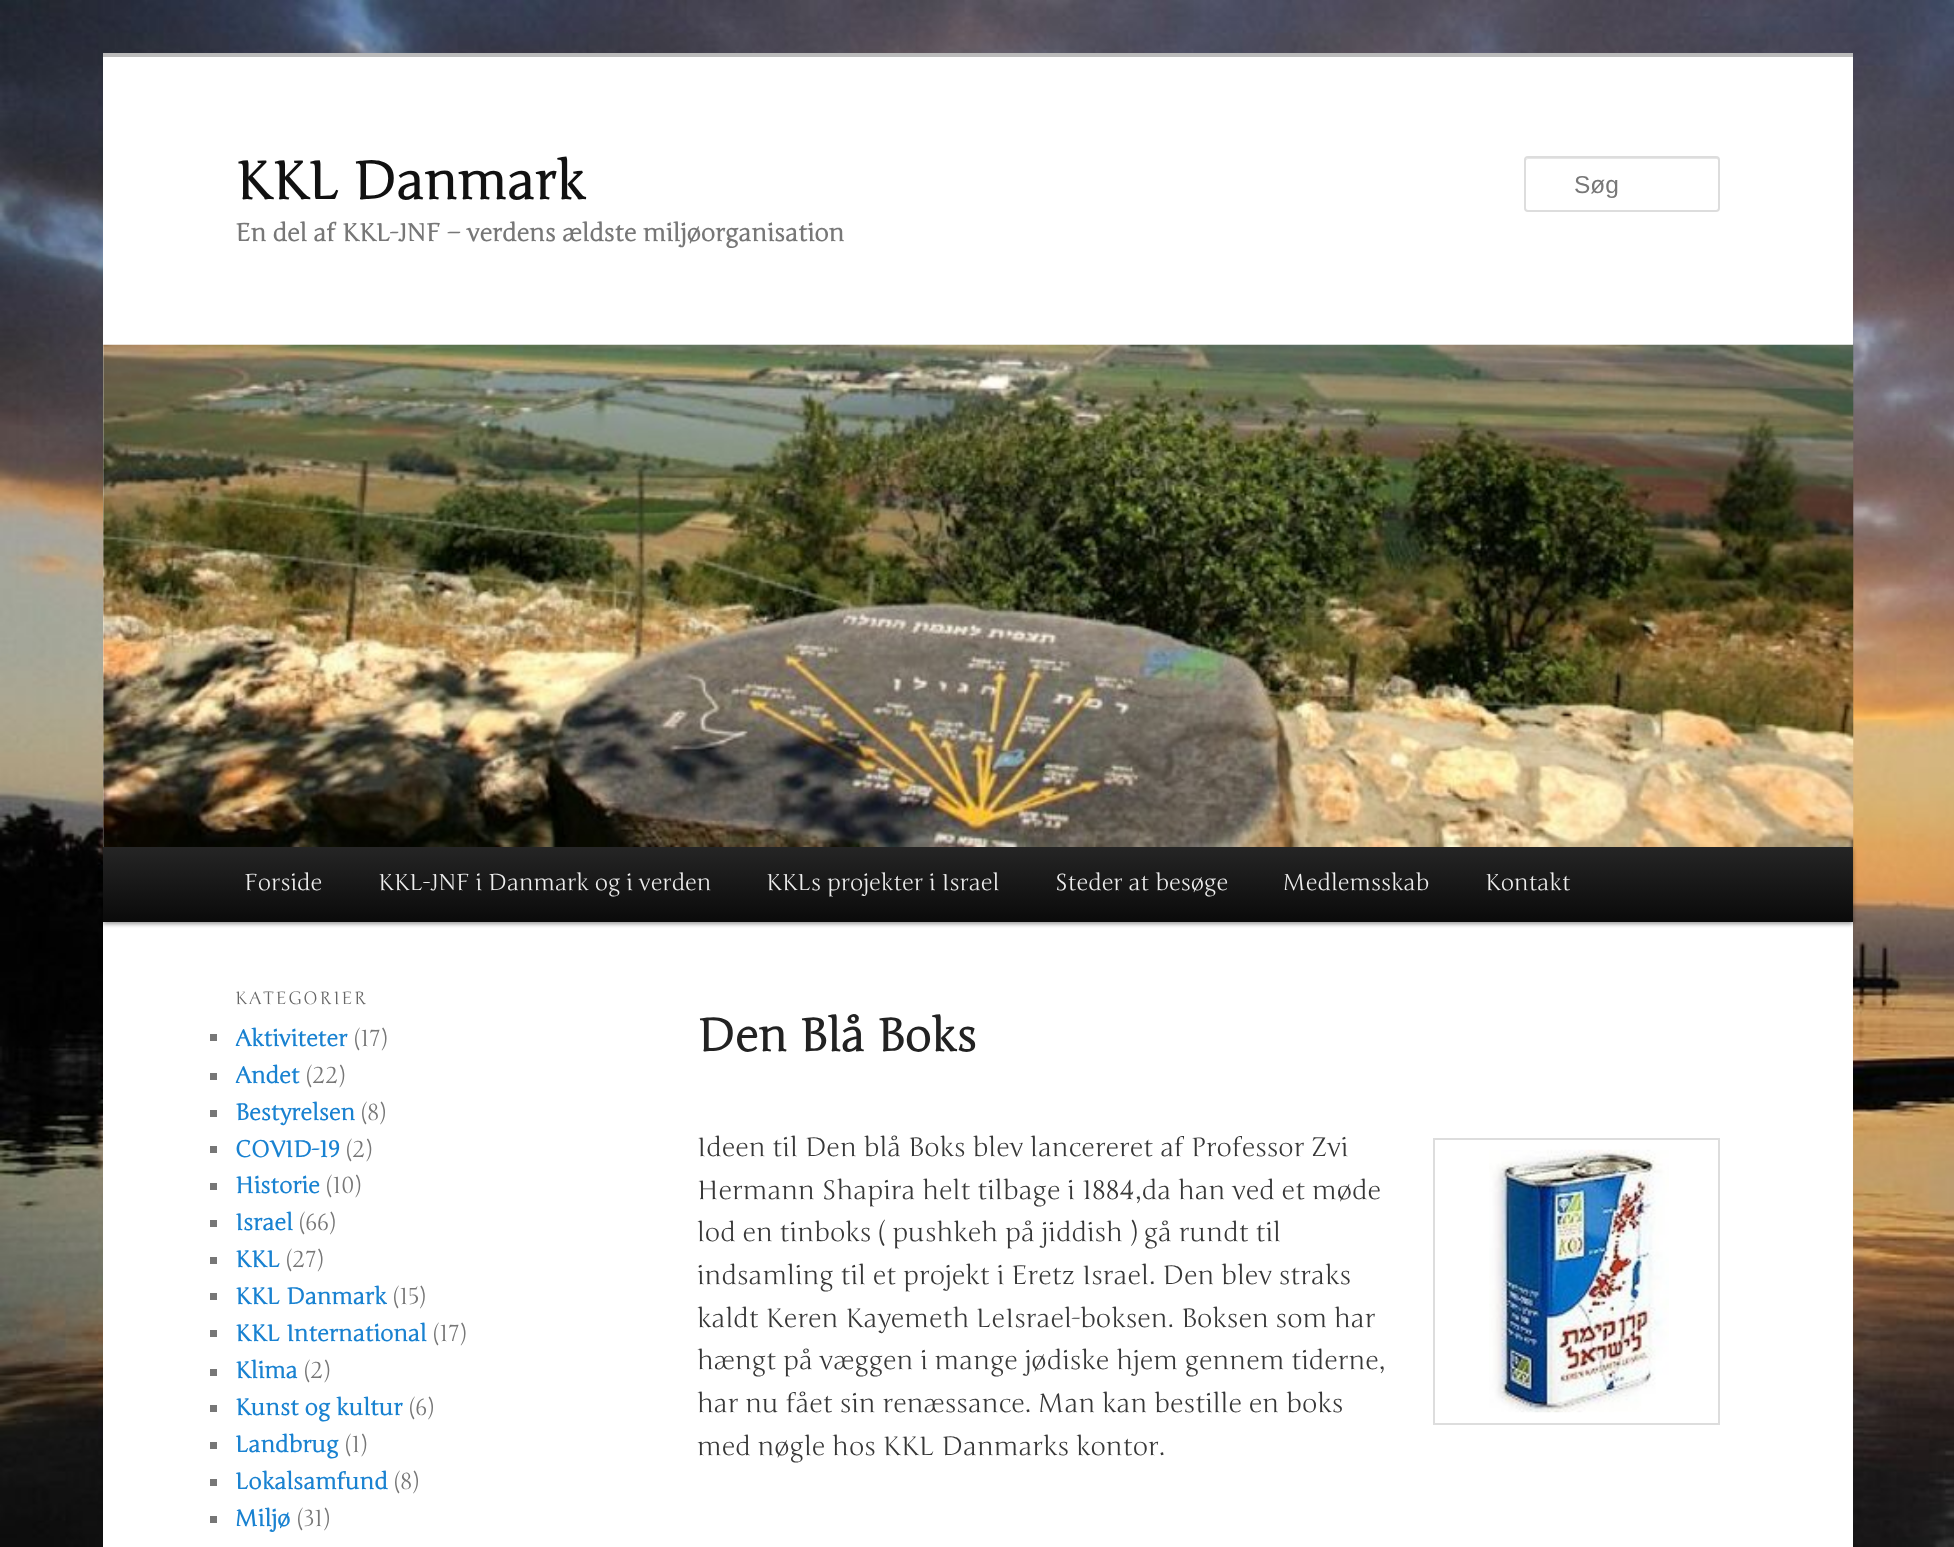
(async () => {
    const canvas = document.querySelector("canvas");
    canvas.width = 1954;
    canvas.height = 1547;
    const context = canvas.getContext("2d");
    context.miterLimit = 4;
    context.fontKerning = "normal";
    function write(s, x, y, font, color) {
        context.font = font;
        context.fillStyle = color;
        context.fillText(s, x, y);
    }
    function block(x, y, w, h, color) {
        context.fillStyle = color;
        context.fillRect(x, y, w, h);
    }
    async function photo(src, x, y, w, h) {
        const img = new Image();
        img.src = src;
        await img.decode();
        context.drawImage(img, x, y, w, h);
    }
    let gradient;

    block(0, 0, 1954, 1547, "rgb(255, 255, 255)");
    await photo("media/1.png", 0, 0, 1954, 1547);
    block(103, 57, 1750, 1490, "rgb(255, 255, 255)");
    block(103, 53, 1750, 4, "rgb(187, 187, 187)");
    write("KKL Danmark", 235, 199, "bold 52.5px Junge", "rgb(17, 17, 17)");
    write("En del af KKL-JNF – verdens ældste miljøorganisation", 235, 241, "bold 24.5px Junge", "rgb(119, 119, 119)");
    context.fillStyle = "rgb(230, 230, 230)";
    context.beginPath();
    context.moveTo(1528, 159);
    context.lineTo(1717, 159);
    context.bezierCurveTo(1718, 159, 1718, 160, 1718, 161);
    context.lineTo(1718, 210);
    context.bezierCurveTo(1719, 209, 1719, 209, 1719, 208);
    context.lineTo(1719, 160);
    context.bezierCurveTo(1719, 159, 1718, 158, 1717, 158);
    context.lineTo(1528, 158);
    context.bezierCurveTo(1527, 158, 1526, 159, 1526, 160);
    context.lineTo(1526, 161);
    context.bezierCurveTo(1526, 160, 1527, 159, 1528, 159);
    context.closePath();
    context.fill();
    context.beginPath();
    context.roundRect(1525, 157, 194, 54, 3);
    context.strokeStyle = "rgb(221, 221, 221)";
    context.lineWidth = 2;
    context.stroke();
    write("Søg", 1574, 193, "24.5px Liberation Sans", "rgb(119, 119, 119)");
    context.fillStyle = "rgba(0, 0, 0, 0.4)";
    context.filter = "blur(2px)";
    context.beginPath();
    context.rect(103, 849, 1750, 75);
    context.fill();
    context.filter = "none";
    await photo("media/2.png", 103, 344, 1751, 503);
    gradient = context.createLinearGradient(978, 847, 978, 922);
    gradient.addColorStop(0, "rgb(37, 37, 37)");
    gradient.addColorStop(1, "rgb(10, 10, 10)");
    context.fillStyle = gradient;
    context.fillRect(103, 847, 1750, 75);
    write("Forside", 244, 890, "22.75px Junge", "rgb(238, 238, 238)");
    write("KKL-JNF i Danmark og i verden", 378, 890, "22.75px Junge", "rgb(238, 238, 238)");
    write("KKLs projekter i Israel", 766, 890, "22.75px Junge", "rgb(238, 238, 238)");
    write("Steder at besøge", 1055, 890, "22.75px Junge", "rgb(238, 238, 238)");
    write("Medlemsskab", 1283, 890, "22.75px Junge", "rgb(238, 238, 238)");
    write("Kontakt", 1485, 890, "22.75px Junge", "rgb(238, 238, 238)");
    context.letterSpacing = "1.75px";
    write("KATEGORIER", 235, 1004, "17.5px Junge", "rgb(102, 102, 102)");
    block(210, 1034, 7, 7, "rgb(119, 119, 119)");
    context.letterSpacing = "0px";
    write("Aktiviteter", 235, 1046, "bold 22.75px Junge", "rgb(25, 130, 209)");
    write("(17)", 354, 1046, "22.75px Junge", "rgb(119, 119, 119)");
    block(210, 1073, 7, 7, "rgb(119, 119, 119)");
    write("Andet", 235, 1083, "bold 22.75px Junge", "rgb(25, 130, 209)");
    write("(22)", 306, 1083, "22.75px Junge", "rgb(119, 119, 119)");
    block(210, 1110, 7, 7, "rgb(119, 119, 119)");
    write("Bestyrelsen", 235, 1120, "bold 22.75px Junge", "rgb(25, 130, 209)");
    write("(8)", 361, 1120, "22.75px Junge", "rgb(119, 119, 119)");
    block(210, 1146, 7, 7, "rgb(119, 119, 119)");
    write("COVID-19", 235, 1157, "bold 22.75px Junge", "rgb(25, 130, 209)");
    write("(2)", 346, 1157, "22.75px Junge", "rgb(119, 119, 119)");
    block(210, 1183, 7, 7, "rgb(119, 119, 119)");
    write("Historie", 235, 1193, "bold 22.75px Junge", "rgb(25, 130, 209)");
    write("(10)", 326, 1193, "22.75px Junge", "rgb(119, 119, 119)");
    block(210, 1220, 7, 7, "rgb(119, 119, 119)");
    write("Israel", 235, 1230, "bold 22.75px Junge", "rgb(25, 130, 209)");
    write("(66)", 299, 1230, "22.75px Junge", "rgb(119, 119, 119)");
    block(210, 1257, 7, 7, "rgb(119, 119, 119)");
    write("KKL", 235, 1267, "bold 22.75px Junge", "rgb(25, 130, 209)");
    write("(27)", 286, 1267, "22.75px Junge", "rgb(119, 119, 119)");
    block(210, 1293, 7, 7, "rgb(119, 119, 119)");
    write("KKL Danmark", 235, 1304, "bold 22.75px Junge", "rgb(25, 130, 209)");
    write("(15)", 393, 1304, "22.75px Junge", "rgb(119, 119, 119)");
    block(210, 1330, 7, 7, "rgb(119, 119, 119)");
    write("KKL International", 235, 1341, "bold 22.75px Junge", "rgb(25, 130, 209)");
    write("(17)", 433, 1341, "22.75px Junge", "rgb(119, 119, 119)");
    block(210, 1369, 7, 7, "rgb(119, 119, 119)");
    write("Klima", 235, 1378, "bold 22.75px Junge", "rgb(25, 130, 209)");
    write("(2)", 304, 1378, "22.75px Junge", "rgb(119, 119, 119)");
    block(210, 1405, 7, 7, "rgb(119, 119, 119)");
    write("Kunst og kultur", 235, 1415, "bold 22.75px Junge", "rgb(25, 130, 209)");
    write("(6)", 409, 1415, "22.75px Junge", "rgb(119, 119, 119)");
    block(210, 1442, 7, 7, "rgb(119, 119, 119)");
    write("Landbrug", 235, 1452, "bold 22.75px Junge", "rgb(25, 130, 209)");
    write("(1)", 345, 1452, "22.75px Junge", "rgb(119, 119, 119)");
    block(210, 1479, 7, 7, "rgb(119, 119, 119)");
    write("Lokalsamfund", 235, 1489, "bold 22.75px Junge", "rgb(25, 130, 209)");
    write("(8)", 394, 1489, "22.75px Junge", "rgb(119, 119, 119)");
    block(210, 1516, 7, 7, "rgb(119, 119, 119)");
    write("Miljø", 235, 1526, "bold 22.75px Junge", "rgb(25, 130, 209)");
    write("(31)", 297, 1526, "22.75px Junge", "rgb(119, 119, 119)");
    write("Den Blå Boks", 697, 1051, "bold 45.5px Junge", "rgb(34, 34, 34)");
    write("Ideen til Den blå Boks blev lancereret af Professor Zvi", 697, 1156, "26.25px Junge", "rgb(55, 55, 55)");
    context.strokeRect(1434, 1139, 285, 285);
    await photo("media/3.png", 1489, 1149, 180, 264);
    write("Hermann Shapira helt tilbage i 1884,da han ved et møde", 697, 1199, "26.25px Junge", "rgb(55, 55, 55)");
    write("lod en tinboks ( pushkeh på jiddish ) gå rundt til", 697, 1241, "26.25px Junge", "rgb(55, 55, 55)");
    write("indsamling til et projekt i Eretz Israel. Den blev straks", 697, 1284, "26.25px Junge", "rgb(55, 55, 55)");
    write("kaldt Keren Kayemeth LeIsrael-boksen. Boksen som har", 697, 1327, "26.25px Junge", "rgb(55, 55, 55)");
    write("hængt på væggen i mange jødiske hjem gennem tiderne,", 697, 1369, "26.25px Junge", "rgb(55, 55, 55)");
    write("har nu fået sin renæssance. Man kan bestille en boks", 697, 1412, "26.25px Junge", "rgb(55, 55, 55)");
    write("med nøgle hos KKL Danmarks kontor.", 697, 1455, "26.25px Junge", "rgb(55, 55, 55)");
})();
